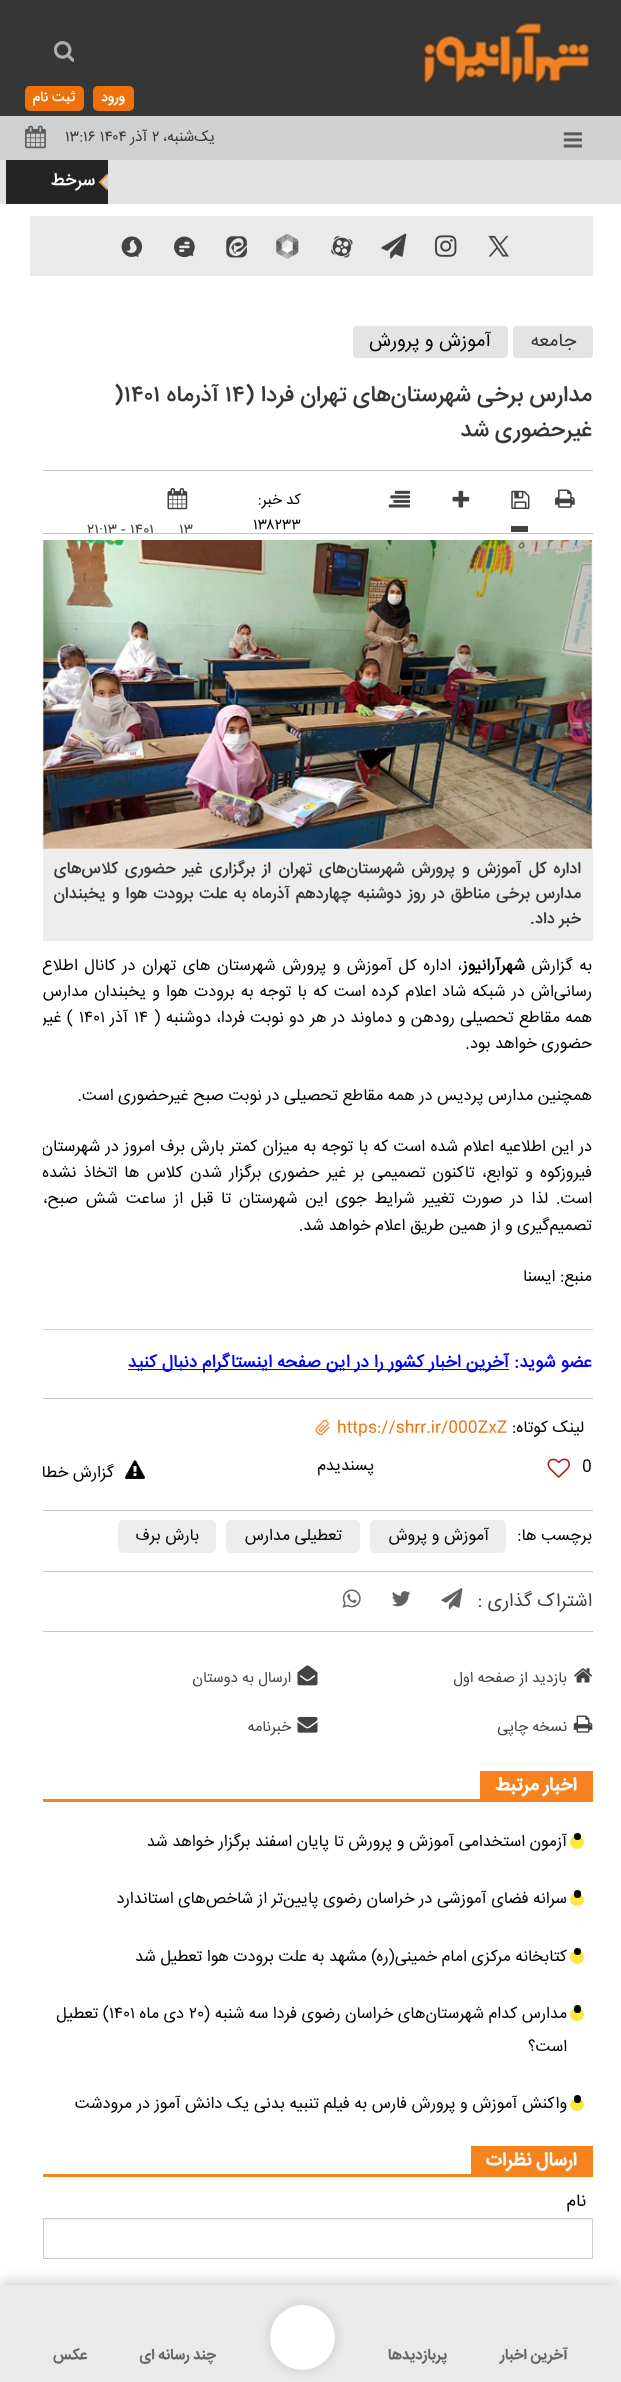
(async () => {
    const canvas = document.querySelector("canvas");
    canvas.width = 621;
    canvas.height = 2382;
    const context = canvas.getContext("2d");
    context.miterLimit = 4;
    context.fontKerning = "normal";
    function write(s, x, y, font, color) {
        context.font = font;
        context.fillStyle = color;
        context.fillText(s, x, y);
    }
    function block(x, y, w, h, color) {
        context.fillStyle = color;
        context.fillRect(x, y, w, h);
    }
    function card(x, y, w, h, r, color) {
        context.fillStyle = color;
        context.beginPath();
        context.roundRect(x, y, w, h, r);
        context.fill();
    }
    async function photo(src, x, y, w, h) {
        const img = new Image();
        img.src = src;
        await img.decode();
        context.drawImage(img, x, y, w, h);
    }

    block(0, 0, 621, 2382, "rgb(255, 255, 255)");
    block(0, 0, 621, 116, "rgb(54, 54, 54)");
    await photo("media/1.png", 422, 21, 169, 63);
    await photo("media/2.png", 54, 41, 20, 21);
    card(93, 86, 41, 25, 5, "rgb(237, 113, 8)");
    context.direction = "rtl";
    write("ورود", 125, 101, "500 14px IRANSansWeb", "rgb(255, 255, 255)");
    card(25, 86, 59, 25, 5, "rgb(237, 113, 8)");
    write("ثبت نام", 75, 101, "500 14px IRANSansWeb", "rgb(255, 255, 255)");
    block(0, 116, 621, 44, "rgb(208, 208, 208)");
    await photo("media/3.png", 563, 132, 19, 16);
    write("یک‌شنبه،", 215, 141, "15px IRANSansWeb", "rgb(54, 54, 54)");
    context.direction = "ltr";
    write("۲", 152, 141, "15px IRANSansWeb", "rgb(54, 54, 54)");
    context.direction = "rtl";
    write("آذر", 147, 141, "15px IRANSansWeb", "rgb(54, 54, 54)");
    context.direction = "ltr";
    write("۱۳:۱۶ ۱۴۰۴", 65, 141, "15px IRANSansWeb", "rgb(54, 54, 54)");
    await photo("media/4.png", 25, 125, 21, 24);
    block(0, 160, 621, 44, "rgb(226, 226, 226)");
    block(6, 160, 102, 44, "rgb(36, 36, 36)");
    context.save();
    context.beginPath();
    context.rect(6, 160, 102, 44);
    context.clip();
    context.fillStyle = "rgb(208, 208, 208)";
    context.beginPath();
    context.moveTo(107, 174);
    context.lineTo(115, 182);
    context.lineTo(107, 190);
    context.lineTo(99, 182);
    context.closePath();
    context.fill();
    context.restore();
    context.fillStyle = "rgb(247, 131, 32)";
    context.beginPath();
    context.moveTo(100, 181);
    context.lineTo(108, 189);
    context.lineTo(107, 190);
    context.lineTo(99, 182);
    context.closePath();
    context.fill();
    context.beginPath();
    context.moveTo(107, 174);
    context.lineTo(108, 175);
    context.lineTo(100, 183);
    context.lineTo(99, 182);
    context.closePath();
    context.fill();
    context.direction = "rtl";
    write("سرخط", 95, 185, "500 17.5px IRANSansWeb", "rgb(255, 255, 255)");
    block(30, 216, 563, 60, "rgb(234, 234, 234)");
    await photo("media/5.png", 488, 235, 21, 22);
    await photo("media/6.png", 435, 235, 22, 22);
    await photo("media/7.png", 381, 233, 26, 26);
    await photo("media/8.png", 331, 236, 22, 22);
    await photo("media/9.png", 276, 234, 23, 25);
    await photo("media/10.png", 226, 236, 21, 22);
    await photo("media/11.png", 174, 236, 21, 22);
    await photo("media/12.png", 121, 236, 22, 22);
    card(513, 326, 80, 32, 4, "rgb(228, 228, 228)");
    write("جامعه", 576, 346, "18.75px IRANSansWeb", "rgb(54, 54, 54)");
    card(353, 326, 155, 32, 4, "rgb(228, 228, 228)");
    write("آموزش و پرورش", 491, 346, "18.75px IRANSansWeb", "rgb(0, 0, 0)");
    write("مدارس برخی شهرستان‌های تهران فردا (", 592, 401, "500 22.5px IRANSansWeb", "rgb(54, 54, 54)");
    context.direction = "ltr";
    write("۱۴", 225, 401, "500 22.5px IRANSansWeb", "rgb(54, 54, 54)");
    context.direction = "rtl";
    write("آذرماه", 219, 401, "500 22.5px IRANSansWeb", "rgb(54, 54, 54)");
    context.direction = "ltr";
    write("۱۴۰۱", 124, 401, "500 22.5px IRANSansWeb", "rgb(54, 54, 54)");
    write(")", 114, 401, "500 22.5px IRANSansWeb", "rgb(54, 54, 54)");
    context.direction = "rtl";
    write("غیرحضوری شد", 592, 436, "500 22.5px IRANSansWeb", "rgb(54, 54, 54)");
    block(43, 470, 550, 1, "rgb(196, 196, 196)");
    block(43, 533, 550, 1, "rgb(196, 196, 196)");
    await photo("media/13.png", 555, 489, 20, 19);
    await photo("media/14.png", 511, 490, 19, 19);
    await photo("media/15.png", 452, 490, 18, 18);
    await photo("media/16.png", 388, 490, 22, 18);
    block(511, 526, 17, 6, "rgb(66, 66, 66)");
    write("کد خبر:", 301, 504, "15px IRANSansWeb", "rgb(0, 0, 0)");
    context.direction = "ltr";
    write("۱۳۸۲۳۳", 253, 529, "15px IRANSansWeb", "rgb(0, 0, 0)");
    await photo("media/17.png", 167, 488, 21, 22);
    context.save();
    context.beginPath();
    context.rect(43, 471, 550, 62);
    context.clip();
    write("۱۳", 179, 534, "15px IRANSansWeb", "rgb(66, 66, 66)");
    write("۱۴۰۱", 130, 534, "15px IRANSansWeb", "rgb(66, 66, 66)");
    context.restore();
    write("-", 121, 534, "15px IRANSansWeb", "rgb(66, 66, 66)");
    context.save();
    context.beginPath();
    context.rect(43, 471, 550, 62);
    context.clip();
    write("۲۱:۱۳", 87, 534, "15px IRANSansWeb", "rgb(66, 66, 66)");
    context.restore();
    await photo("media/18.png", 42, 540, 551, 309);
    block(43, 849, 550, 92, "rgb(237, 237, 237)");
    context.wordSpacing = "2.75px";
    context.direction = "rtl";
    write("اداره کل آموزش و پرورش شهرستان‌های تهران از برگزاری غیر حضوری کلاس‌های", 581, 873, "500 16.25px IRANSansWeb", "rgb(54, 54, 54)");
    context.wordSpacing = "1.6px";
    write("مدارس برخی مناطق در روز دوشنبه چهاردهم آذرماه به علت برودت هوا و یخبندان", 581, 898, "500 16.25px IRANSansWeb", "rgb(54, 54, 54)");
    context.wordSpacing = "0px";
    write("خبر داد.", 581, 923, "500 16.25px IRANSansWeb", "rgb(54, 54, 54)");
    context.wordSpacing = "2px";
    write("به گزارش", 592, 970, "16.25px IRANSansWeb", "rgb(0, 0, 0)");
    context.wordSpacing = "0px";
    write("شهرآرانیوز", 525, 970, "bold 16.25px IRANSansWeb", "rgb(0, 0, 0)");
    context.save();
    context.beginPath();
    context.rect(43, 326, 550, 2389);
    context.clip();
    context.wordSpacing = "2px";
    write("، اداره کل آموزش و پرورش شهرستان های تهران در کانال اطلاع", 462, 970, "16.25px IRANSansWeb", "rgb(0, 0, 0)");
    context.wordSpacing = "1.5px";
    write("رسانی‌اش در شبکه شاد اعلام کرده است که با توجه به برودت هوا و یخبندان مدارس", 592, 996, "16.25px IRANSansWeb", "rgb(0, 0, 0)");
    context.restore();
    context.wordSpacing = "0.75px";
    write("همه مقاطع تحصیلی رودهن و دماوند در هر دو نوبت فردا، دوشنبه (", 592, 1022, "16.25px IRANSansWeb", "rgb(0, 0, 0)");
    context.wordSpacing = "0px";
    context.direction = "ltr";
    write("۱۴", 134, 1022, "16.25px IRANSansWeb", "rgb(0, 0, 0)");
    context.direction = "rtl";
    write("آذر", 128, 1022, "16.25px IRANSansWeb", "rgb(0, 0, 0)");
    context.direction = "ltr";
    write("۱۴۰۱", 79, 1022, "16.25px IRANSansWeb", "rgb(0, 0, 0)");
    context.save();
    context.beginPath();
    context.rect(43, 326, 550, 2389);
    context.clip();
    context.wordSpacing = "0.75px";
    context.direction = "rtl";
    write(") غیر", 73, 1022, "16.25px IRANSansWeb", "rgb(0, 0, 0)");
    context.restore();
    context.direction = "rtl";
    write("حضوری خواهد بود.", 592, 1048, "16.25px IRANSansWeb", "rgb(0, 0, 0)");
    write("همچنین مدارس پردیس در همه مقاطع تحصیلی در نوبت صبح غیرحضوری است.", 592, 1100, "16.25px IRANSansWeb", "rgb(0, 0, 0)");
    context.save();
    context.beginPath();
    context.rect(43, 326, 550, 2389);
    context.clip();
    context.wordSpacing = "0.75px";
    write("در این اطلاعیه اعلام شده است که با توجه به میزان کمتر بارش برف امروز در شهرستان", 592, 1151, "16.25px IRANSansWeb", "rgb(0, 0, 0)");
    context.wordSpacing = "2.6px";
    write("فیروزکوه و توابع، تاکنون تصمیمی بر غیر حضوری برگزار شدن کلاس ها اتخاذ نشده", 592, 1177, "16.25px IRANSansWeb", "rgb(0, 0, 0)");
    context.restore();
    context.wordSpacing = "3.25px";
    write("است. لذا در صورت تغییر شرایط جوی این شهرستان تا قبل از ساعت شش صبح،", 592, 1203, "16.25px IRANSansWeb", "rgb(0, 0, 0)");
    context.wordSpacing = "0px";
    write("تصمیم‌گیری و از همین طریق اعلام خواهد شد.", 592, 1230, "16.25px IRANSansWeb", "rgb(0, 0, 0)");
    write("منبع: ایسنا", 592, 1281, "16.25px IRANSansWeb", "rgb(0, 0, 0)");
    block(43, 1329, 550, 1, "rgb(205, 209, 210)");
    write("عضو شوید:", 592, 1367, "bold 17.5px IRANSansWeb", "rgb(0, 0, 255)");
    block(128, 1369, 381, 1, "rgb(0, 0, 255)");
    write("آخرین اخبار کشور را در این صفحه اینستاگرام دنبال کنید", 509, 1367, "bold 17.5px IRANSansWeb", "rgb(0, 0, 255)");
    block(43, 1398, 550, 1, "rgb(196, 196, 196)");
    block(43, 1510, 550, 1, "rgb(196, 196, 196)");
    write("لینک کوتاه:", 584, 1432, "16.25px IRANSansWeb", "rgb(0, 0, 0)");
    context.direction = "ltr";
    write("https://shrr.ir/000ZxZ", 337, 1432, "16.25px IRANSansWeb", "rgb(235, 113, 10)");
    await photo("media/19.png", 315, 1420, 15, 15);
    write("0", 582, 1471, "16.25px IRANSansWeb", "rgb(0, 0, 0)");
    await photo("media/20.png", 547, 1458, 23, 20);
    context.direction = "rtl";
    write("پسندیدم", 374, 1470, "16.25px IRANSansWeb", "rgb(0, 0, 0)");
    await photo("media/21.png", 125, 1460, 20, 19);
    write("گزارش خطا", 114, 1477, "16.25px IRANSansWeb", "rgb(0, 0, 0)");
    block(43, 1571, 550, 1, "rgb(196, 196, 196)");
    write("برچسب ها:", 592, 1540, "16.25px IRANSansWeb", "rgb(0, 0, 0)");
    card(370, 1520, 136, 33, 5, "rgb(237, 237, 237)");
    write("آموزش و پروش", 489, 1540, "16.25px IRANSansWeb", "rgb(0, 0, 0)");
    card(226, 1520, 134, 33, 5, "rgb(237, 237, 237)");
    write("تعطیلی مدارس", 342, 1540, "16.25px IRANSansWeb", "rgb(0, 0, 0)");
    card(118, 1520, 98, 33, 5, "rgb(237, 237, 237)");
    write("بارش برف", 199, 1540, "16.25px IRANSansWeb", "rgb(0, 0, 0)");
    block(43, 1631, 550, 1, "rgb(196, 196, 196)");
    write("اشتراک گذاری :", 592, 1606, "18.75px IRANSansWeb", "rgb(66, 66, 66)");
    await photo("media/22.png", 441, 1588, 22, 22);
    await photo("media/23.png", 392, 1591, 19, 16);
    await photo("media/24.png", 342, 1589, 19, 19);
    await photo("media/25.png", 574, 1668, 18, 15);
    write("بازدید از صفحه اول", 567, 1682, "15px IRANSansWeb", "rgb(66, 66, 66)");
    await photo("media/26.png", 297, 1665, 21, 21);
    write("ارسال به دوستان", 291, 1682, "15px IRANSansWeb", "rgb(66, 66, 66)");
    await photo("media/27.png", 573, 1715, 20, 18);
    write("نسخه چاپی", 567, 1731, "15px IRANSansWeb", "rgb(66, 66, 66)");
    await photo("media/28.png", 297, 1716, 21, 17);
    write("خبرنامه", 291, 1731, "15px IRANSansWeb", "rgb(66, 66, 66)");
    block(480, 1771, 113, 28, "rgb(247, 131, 32)");
    write("اخبار مرتبط", 577, 1790, "bold 18.75px 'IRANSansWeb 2'", "rgb(255, 255, 255)");
    block(43, 1799, 550, 3, "rgb(247, 131, 32)");
    context.fillStyle = "rgb(251, 231, 62)";
    context.beginPath();
    context.arc(577, 1842, 7, 0, Math.PI * 2);
    context.fill();
    context.fillStyle = "rgb(0, 0, 0)";
    context.beginPath();
    context.arc(577.5, 1836.5, 3.5, 0, Math.PI * 2);
    context.fill();
    write("آزمون استخدامی آموزش و پرورش تا پایان اسفند برگزار خواهد شد", 567, 1846, "16.25px IRANSansWeb", "rgb(0, 0, 0)");
    card(570, 1893, 14, 13, 6.5, "rgb(251, 231, 62)");
    card(574, 1890, 7, 8, 3.5, "rgb(0, 0, 0)");
    write("سرانه فضای آموزشی در خراسان رضوی پایین‌تر از شاخص‌های استاندارد", 567, 1903, "16.25px IRANSansWeb", "rgb(0, 0, 0)");
    context.fillStyle = "rgb(251, 231, 62)";
    context.beginPath();
    context.arc(577, 1957, 7, 0, Math.PI * 2);
    context.fill();
    context.fillStyle = "rgb(0, 0, 0)";
    context.beginPath();
    context.arc(577.5, 1951.5, 3.5, 0, Math.PI * 2);
    context.fill();
    write("کتابخانه مرکزی امام خمینی(ره) مشهد به علت برودت هوا تعطیل شد", 567, 1961, "16.25px IRANSansWeb", "rgb(0, 0, 0)");
    card(570, 2008, 14, 13, 6.5, "rgb(251, 231, 62)");
    card(574, 2005, 7, 8, 3.5, "rgb(0, 0, 0)");
    write("مدارس کدام شهرستان‌های خراسان رضوی فردا سه شنبه (", 567, 2018, "16.25px IRANSansWeb", "rgb(0, 0, 0)");
    context.direction = "ltr";
    write("۲۰", 189, 2018, "16.25px IRANSansWeb", "rgb(0, 0, 0)");
    context.direction = "rtl";
    write("دی ماه", 184, 2018, "16.25px IRANSansWeb", "rgb(0, 0, 0)");
    context.direction = "ltr";
    write("۱۴۰۱", 109, 2018, "16.25px IRANSansWeb", "rgb(0, 0, 0)");
    context.direction = "rtl";
    write(") تعطیل", 109, 2018, "16.25px IRANSansWeb", "rgb(0, 0, 0)");
    write("است؟", 567, 2051, "16.25px IRANSansWeb", "rgb(0, 0, 0)");
    card(570, 2098, 14, 13, 6.5, "rgb(251, 231, 62)");
    card(574, 2095, 7, 8, 3.5, "rgb(0, 0, 0)");
    write("واکنش آموزش و پرورش فارس به فیلم تنبیه بدنی یک دانش آموز در مرودشت", 567, 2108, "16.25px IRANSansWeb", "rgb(0, 0, 0)");
    block(471, 2146, 122, 28, "rgb(247, 131, 32)");
    write("ارسال نظرات", 577, 2165, "bold 18.75px 'IRANSansWeb 2'", "rgb(255, 255, 255)");
    block(43, 2174, 550, 3, "rgb(247, 131, 32)");
    write("نام", 586, 2206, "17.5px IRANSansWeb", "rgb(0, 0, 0)");
    block(44, 2219, 547, 1, "rgb(236, 236, 236)");
    context.strokeStyle = "rgb(204, 204, 204)";
    context.strokeRect(43.5, 2218.5, 549, 40);
    context.fillStyle = "rgba(0, 0, 0, 0.15)";
    context.filter = "blur(6px)";
    context.beginPath();
    context.rect(0, 2280, 621, 98);
    context.fill();
    context.filter = "none";
    block(0, 2285, 621, 97, "rgb(234, 234, 234)");
    write("آخرین اخبار", 568, 2359, "bold 15px 'IRANSansWeb 2'", "rgb(102, 102, 102)");
    write("پربازدیدها", 447, 2359, "bold 15px 'IRANSansWeb 2'", "rgb(102, 102, 102)");
    context.fillStyle = "rgba(0, 0, 0, 0.15)";
    context.filter = "blur(6px)";
    context.beginPath();
    context.roundRect(270, 2305, 65, 65, 32.5);
    context.fill();
    context.filter = "none";
    context.fillStyle = "rgb(255, 255, 255)";
    context.beginPath();
    context.arc(302.5, 2337.5, 32.5, 0, Math.PI * 2);
    context.fill();
    write("چند رسانه ای", 216, 2359, "bold 15px 'IRANSansWeb 2'", "rgb(102, 102, 102)");
    write("عکس", 87, 2359, "bold 15px 'IRANSansWeb 2'", "rgb(102, 102, 102)");
})();
